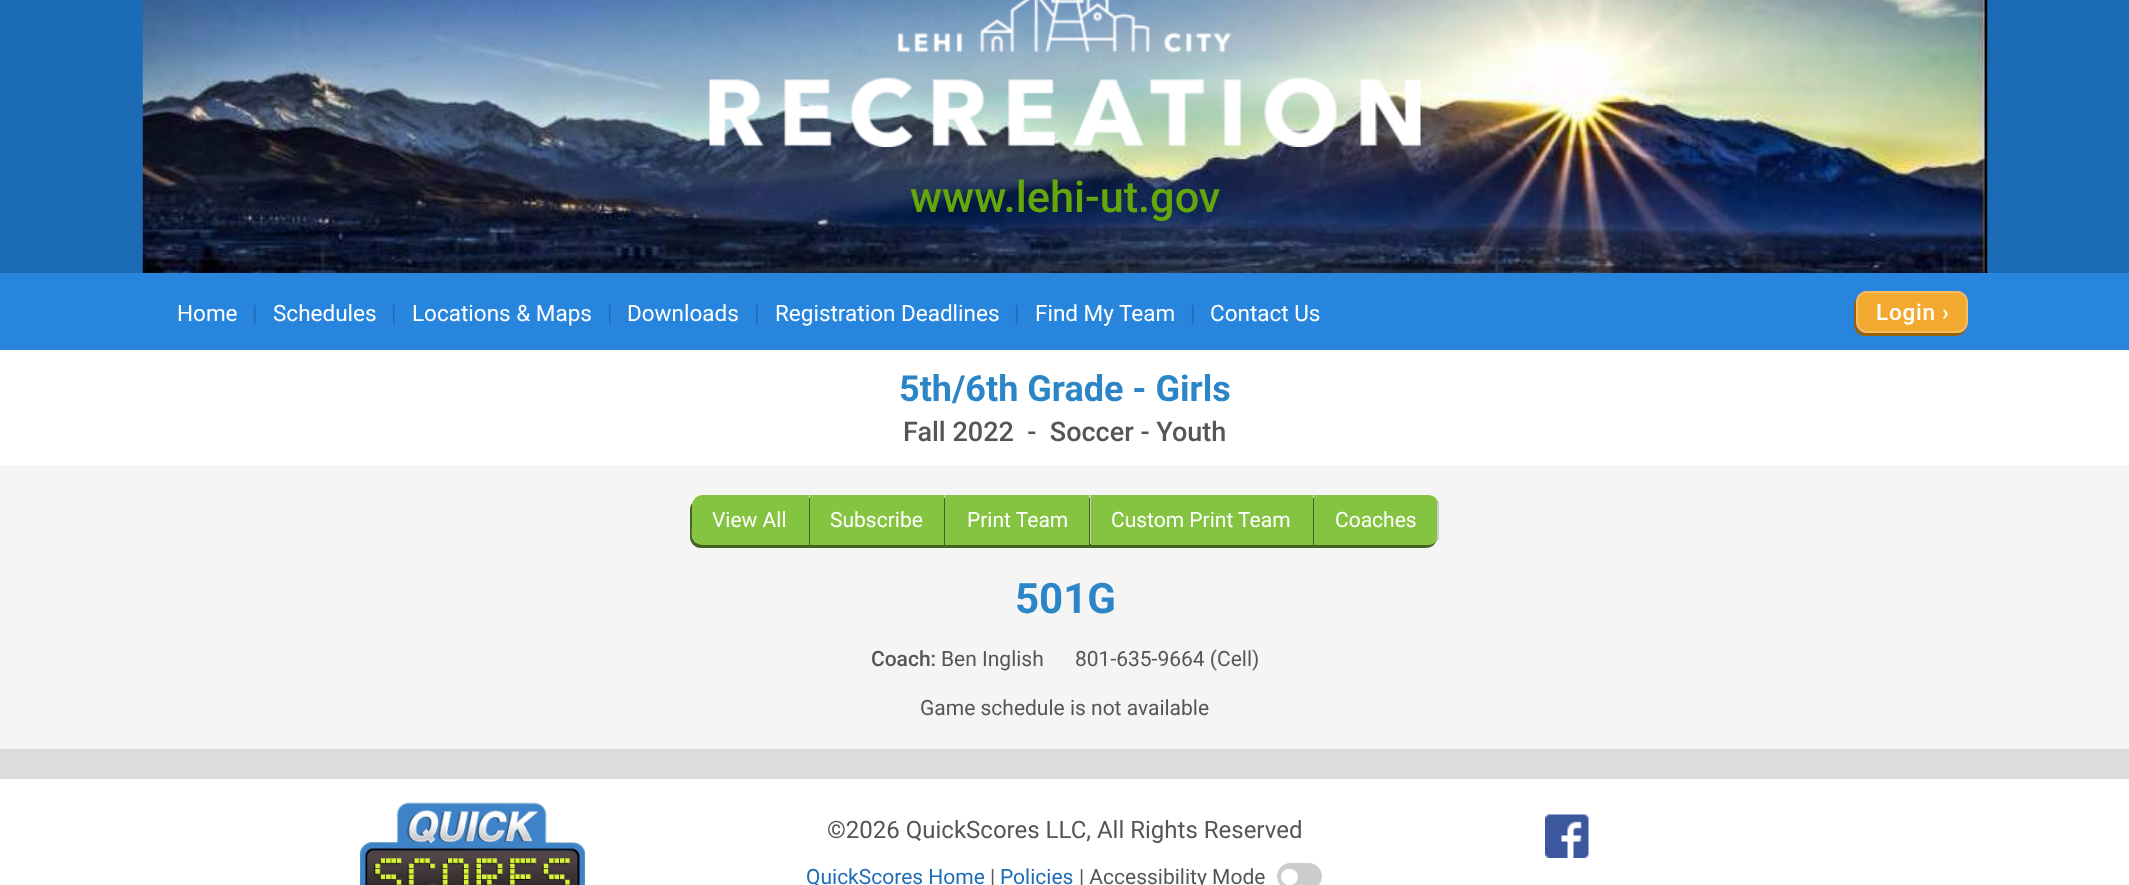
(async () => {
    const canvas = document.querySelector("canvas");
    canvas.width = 2129;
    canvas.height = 885;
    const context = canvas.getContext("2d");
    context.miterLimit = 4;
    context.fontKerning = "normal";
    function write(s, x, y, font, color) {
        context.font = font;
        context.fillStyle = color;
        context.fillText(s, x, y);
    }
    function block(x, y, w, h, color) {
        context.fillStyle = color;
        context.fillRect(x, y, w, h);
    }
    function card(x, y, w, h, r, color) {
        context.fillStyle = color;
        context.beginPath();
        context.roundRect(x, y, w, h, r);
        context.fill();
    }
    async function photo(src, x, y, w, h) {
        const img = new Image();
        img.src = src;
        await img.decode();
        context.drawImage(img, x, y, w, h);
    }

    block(0, 0, 2129, 885, "rgb(245, 245, 245)");
    block(0, 0, 2129, 273, "rgb(28, 107, 182)");
    await photo("media/1.png", 142, 0, 1846, 273);
    await photo("media/2.png", 709, 0, 712, 147);
    write("www.lehi-ut.gov", 910, 212, "500 43.25px Roboto", "rgb(100, 167, 11)");
    block(0, 273, 2129, 77, "rgb(39, 133, 222)");
    write("Home", 177, 321, "22.5px Roboto", "rgb(255, 255, 255)");
    write("|", 252, 321, "22.5px Roboto", "rgb(31, 107, 182)");
    write("Schedules", 273, 321, "22.5px Roboto", "rgb(255, 255, 255)");
    write("|", 391, 321, "22.5px Roboto", "rgb(31, 107, 182)");
    write("Locations & Maps", 412, 321, "22.5px Roboto", "rgb(255, 255, 255)");
    write("|", 607, 321, "22.5px Roboto", "rgb(31, 107, 182)");
    write("Downloads", 627, 321, "22.5px Roboto", "rgb(255, 255, 255)");
    write("|", 754, 321, "22.5px Roboto", "rgb(31, 107, 182)");
    write("Registration Deadlines", 775, 321, "22.5px Roboto", "rgb(255, 255, 255)");
    write("|", 1014, 321, "22.5px Roboto", "rgb(31, 107, 182)");
    write("Find My Team", 1035, 321, "22.5px Roboto", "rgb(255, 255, 255)");
    write("|", 1190, 321, "22.5px Roboto", "rgb(31, 107, 182)");
    write("Contact Us", 1210, 321, "22.5px Roboto", "rgb(255, 255, 255)");
    context.fillStyle = "rgb(154, 99, 9)";
    context.beginPath();
    context.moveTo(1856, 299);
    context.bezierCurveTo(1855, 301, 1854, 303, 1854, 305);
    context.lineTo(1854, 325);
    context.bezierCurveTo(1854, 331, 1859, 336, 1865, 336);
    context.lineTo(1956, 336);
    context.bezierCurveTo(1961, 336, 1966, 332, 1967, 328);
    context.bezierCurveTo(1965, 331, 1961, 333, 1958, 333);
    context.lineTo(1866, 333);
    context.bezierCurveTo(1860, 333, 1856, 328, 1856, 322);
    context.closePath();
    context.fill();
    context.fillStyle = "rgb(243, 169, 47)";
    context.beginPath();
    context.roundRect(1857, 292, 110, 40, 10);
    context.fill();
    context.strokeStyle = "rgb(246, 189, 95)";
    context.lineWidth = 2;
    context.stroke();
    context.letterSpacing = "0.75px";
    write("Login ›", 1876, 320, "500 22.5px Roboto", "rgb(255, 255, 255)");
    block(0, 350, 2129, 115, "rgb(255, 255, 255)");
    context.letterSpacing = "0px";
    write("5th/6th Grade - Girls", 899, 401, "bold 36px Roboto", "rgb(44, 133, 199)");
    write("Fall 2022  -  Soccer - Youth", 903, 441, "500 27px Roboto", "rgb(85, 85, 85)");
    context.fillStyle = "rgb(67, 101, 31)";
    context.beginPath();
    context.moveTo(692, 503);
    context.bezierCurveTo(691, 505, 690, 507, 690, 509);
    context.lineTo(690, 537);
    context.bezierCurveTo(690, 543, 695, 548, 701, 548);
    context.lineTo(809, 548);
    context.lineTo(809, 544);
    context.lineTo(702, 544);
    context.bezierCurveTo(690, 544, 692, 533, 692, 524);
    context.closePath();
    context.fill();
    context.fillStyle = "rgb(132, 196, 64)";
    context.beginPath();
    context.roundRect(692, 495, 118, 50, [11, 0, 0, 11]);
    context.fill();
    block(809, 495, 1, 3, "rgb(204, 204, 204)");
    write("View All", 712, 527, "21px Roboto", "rgb(255, 255, 255)");
    context.fillStyle = "rgb(67, 101, 31)";
    context.beginPath();
    context.moveTo(809, 498);
    context.lineTo(809, 548);
    context.lineTo(944, 548);
    context.lineTo(944, 544);
    context.lineTo(810, 544);
    context.lineTo(810, 498);
    context.closePath();
    context.fill();
    block(810, 495, 134, 50, "rgb(132, 196, 64)");
    block(944, 495, 1, 3, "rgb(204, 204, 204)");
    write("Subscribe", 830, 527, "21px Roboto", "rgb(255, 255, 255)");
    context.fillStyle = "rgb(67, 101, 31)";
    context.beginPath();
    context.moveTo(944, 498);
    context.lineTo(944, 548);
    context.lineTo(1089, 548);
    context.lineTo(1089, 544);
    context.lineTo(945, 544);
    context.lineTo(945, 498);
    context.closePath();
    context.fill();
    block(945, 495, 144, 50, "rgb(132, 196, 64)");
    block(1089, 495, 2, 50, "rgb(204, 204, 204)");
    write("Print Team", 967, 527, "21px Roboto", "rgb(255, 255, 255)");
    context.fillStyle = "rgb(67, 101, 31)";
    context.beginPath();
    context.moveTo(1089, 498);
    context.lineTo(1089, 548);
    context.lineTo(1313, 548);
    context.lineTo(1313, 544);
    context.lineTo(1090, 544);
    context.lineTo(1090, 498);
    context.closePath();
    context.fill();
    block(1091, 495, 222, 50, "rgb(132, 196, 64)");
    block(1313, 495, 1, 3, "rgb(204, 204, 204)");
    write("Custom Print Team", 1111, 527, "21px Roboto", "rgb(255, 255, 255)");
    context.fillStyle = "rgb(67, 101, 31)";
    context.beginPath();
    context.moveTo(1313, 498);
    context.lineTo(1313, 548);
    context.lineTo(1426, 548);
    context.bezierCurveTo(1431, 548, 1435, 545, 1437, 540);
    context.bezierCurveTo(1435, 543, 1432, 544, 1428, 544);
    context.lineTo(1314, 544);
    context.lineTo(1314, 498);
    context.closePath();
    context.fill();
    context.fillStyle = "rgb(132, 196, 64)";
    context.beginPath();
    context.roundRect(1314, 495, 125, 50, [0, 11, 11, 0]);
    context.fill();
    block(1437, 501, 2, 39, "rgb(204, 204, 204)");
    write("Coaches", 1335, 527, "21px Roboto", "rgb(255, 255, 255)");
    write("501G", 1015, 613, "bold 42px Roboto", "rgb(44, 133, 199)");
    write("Coach:", 871, 666, "500 21px Roboto", "rgb(85, 85, 85)");
    write("Ben Inglish", 941, 666, "21px Roboto", "rgb(85, 85, 85)");
    write("801-635-9664 (Cell)", 1075, 666, "21px Roboto", "rgb(85, 85, 85)");
    write("Game schedule is not available", 920, 715, "21px Roboto", "rgb(85, 85, 85)");
    block(0, 779, 2129, 106, "rgb(255, 255, 255)");
    block(0, 749, 2129, 30, "rgb(220, 220, 220)");
    await photo("media/3.png", 360, 802, 225, 83);
    write("©2026 QuickScores LLC, All Rights Reserved", 827, 838, "24px Roboto", "rgb(85, 85, 85)");
    write("QuickScores Home", 806, 884, "21px Roboto", "rgb(31, 107, 182)");
    write("|", 990, 884, "21px Roboto", "rgb(85, 85, 85)");
    write("Policies", 1000, 884, "21px Roboto", "rgb(31, 107, 182)");
    write("| Accessibility Mode", 1079, 884, "21px Roboto", "rgb(85, 85, 85)");
    card(1277, 863, 45, 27, 13.5, "rgb(204, 204, 204)");
    card(1281, 869, 17, 16, 8, "rgb(255, 255, 255)");
    await photo("media/4.png", 1545, 814, 44, 44);
})();
